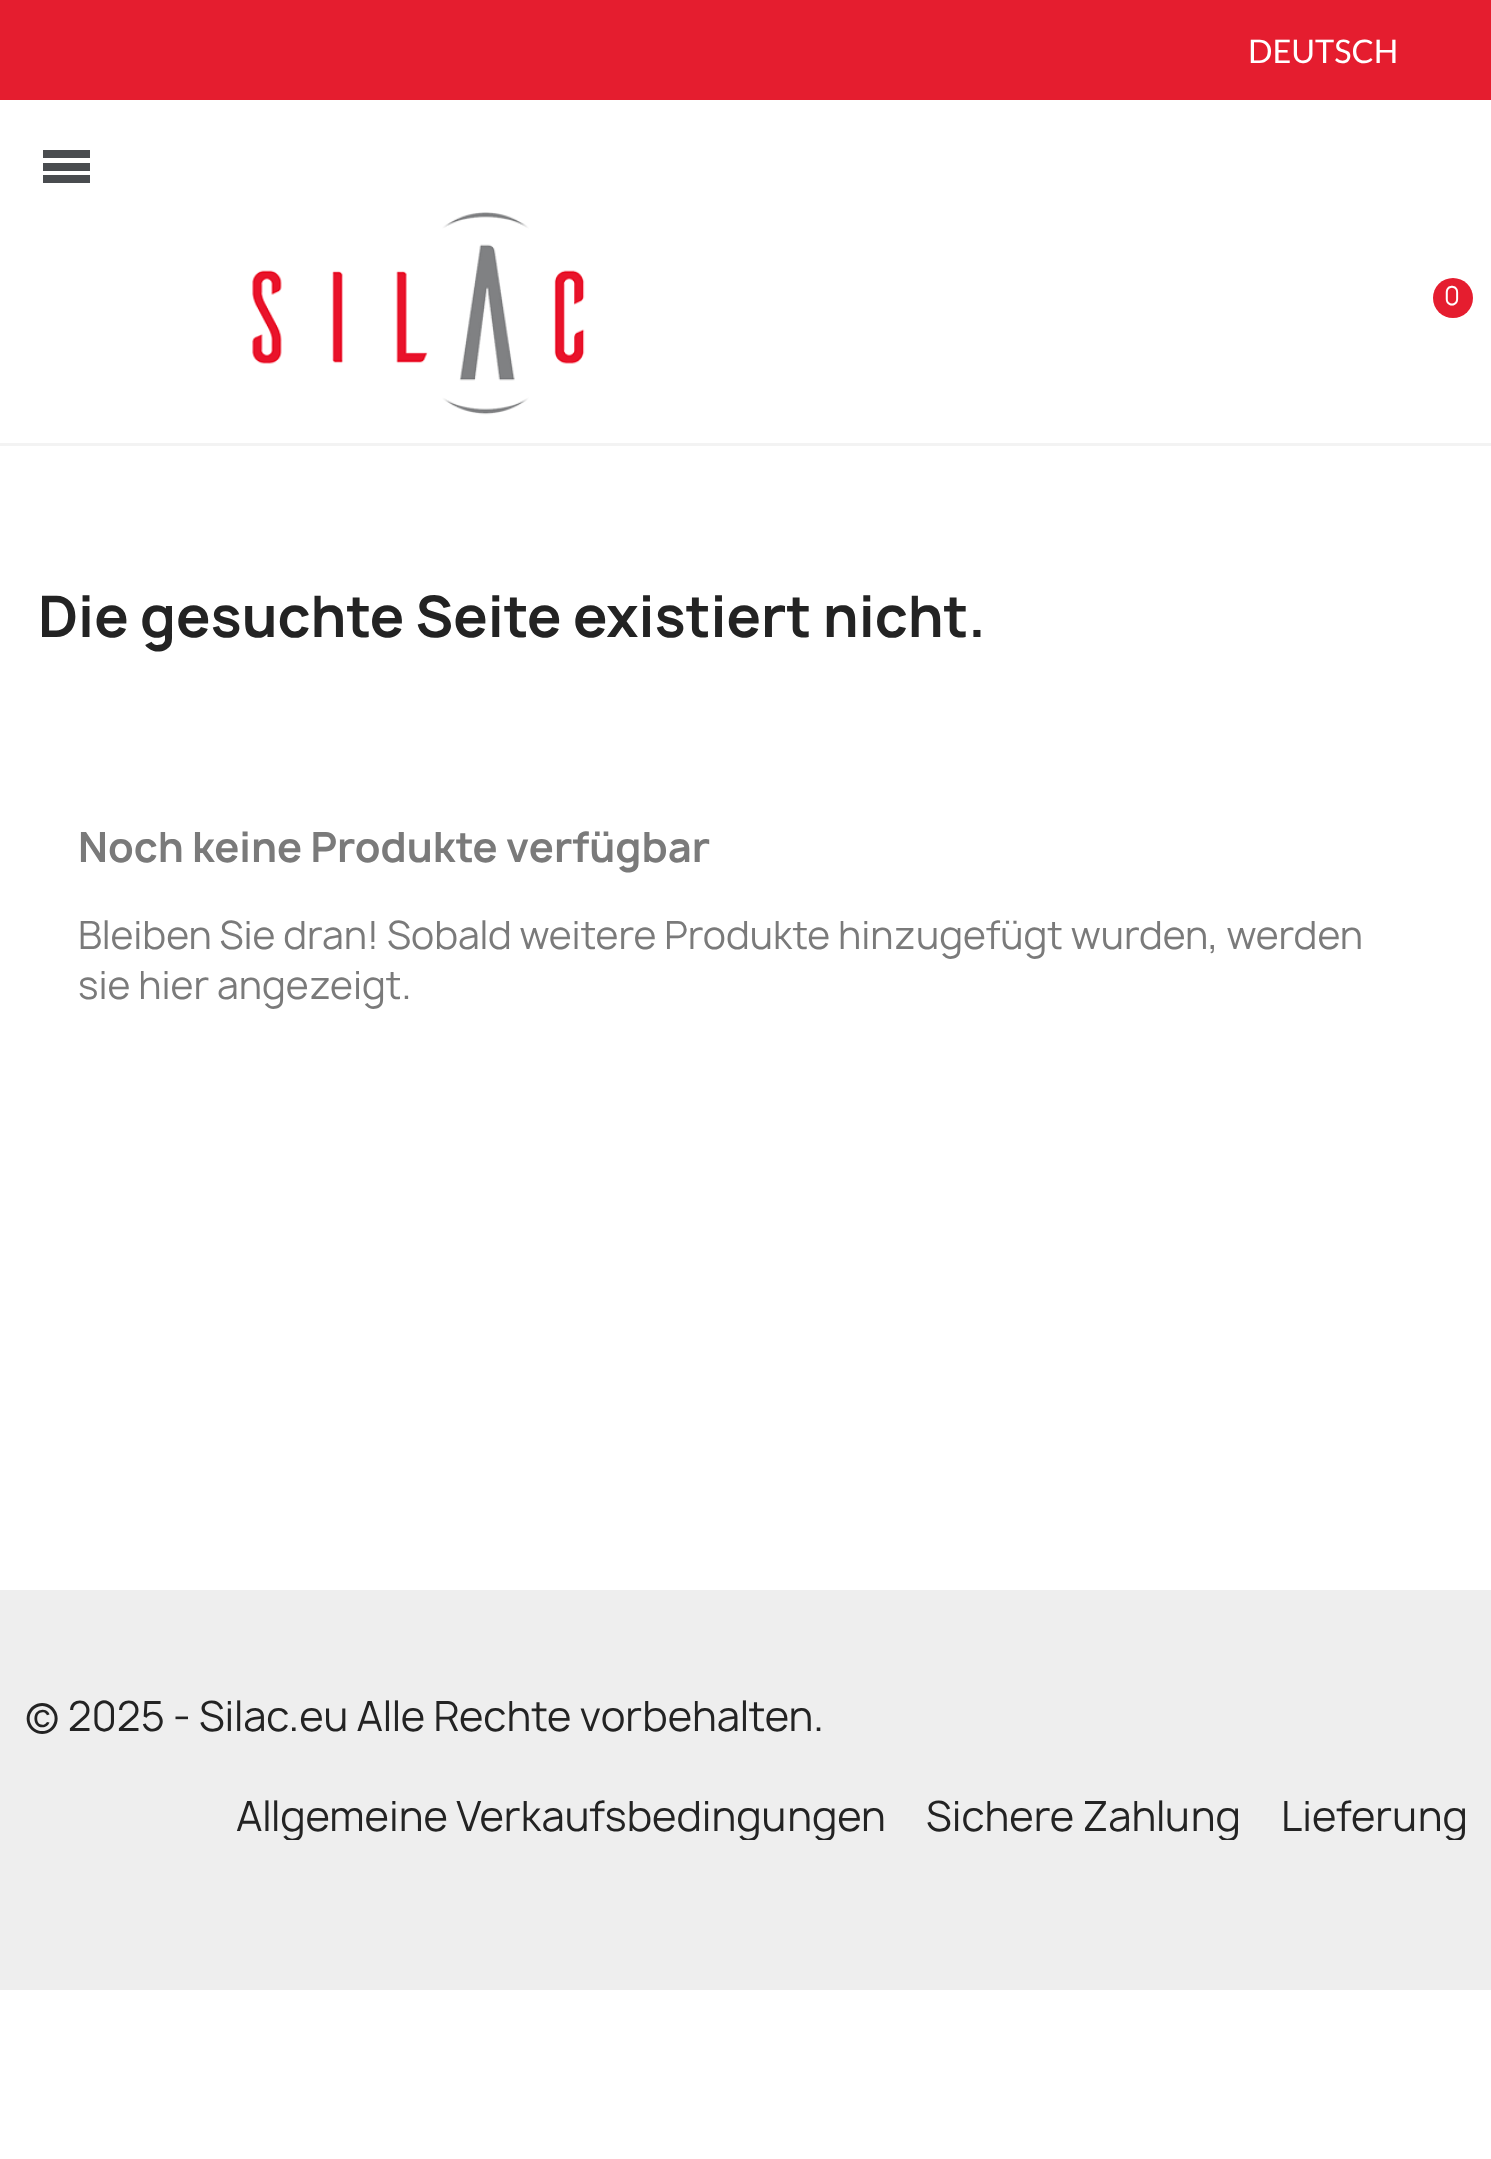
(async () => {
    const canvas = document.querySelector("canvas");
    canvas.width = 1491;
    canvas.height = 2159;
    const context = canvas.getContext("2d");
    context.miterLimit = 4;
    context.fontKerning = "normal";
    function write(s, x, y, font, color) {
        context.font = font;
        context.fillStyle = color;
        context.fillText(s, x, y);
    }
    function block(x, y, w, h, color) {
        context.fillStyle = color;
        context.fillRect(x, y, w, h);
    }
    async function photo(src, x, y, w, h) {
        const img = new Image();
        img.src = src;
        await img.decode();
        context.drawImage(img, x, y, w, h);
    }

    block(0, 0, 1491, 2159, "rgb(255, 255, 255)");
    block(0, 0, 1491, 100, "rgb(229, 29, 47)");
    write("DEUTSCH", 1248, 63, "32.5px Lato", "rgb(255, 255, 255)");
    block(0, 443, 1491, 3, "rgb(243, 243, 243)");
    block(43, 163, 47, 8, "rgb(73, 76, 79)");
    block(43, 150, 47, 8, "rgb(73, 76, 79)");
    block(43, 175, 47, 8, "rgb(73, 76, 79)");
    await photo("media/1.png", 252, 212, 333, 203);
    context.fillStyle = "rgb(229, 29, 47)";
    context.beginPath();
    context.arc(1453, 298, 20, 0, Math.PI * 2);
    context.fill();
    write("0", 1444, 305, "25px Manrope", "rgb(255, 255, 255)");
    write("Die gesuchte Seite existiert nicht.", 38, 637, "bold 55px Manrope", "rgb(35, 35, 35)");
    write("Noch keine Produkte verfügbar", 78, 862, "bold 40px Manrope", "rgb(122, 122, 122)");
    write("Bleiben Sie dran! Sobald weitere Produkte hinzugefügt wurden, werden", 78, 949, "37.5px Manrope", "rgb(122, 122, 122)");
    write("sie hier angezeigt.", 78, 999, "37.5px Manrope", "rgb(122, 122, 122)");
    block(0, 1590, 1491, 400, "rgb(238, 238, 238)");
    write("© 2025 - Silac.eu Alle Rechte vorbehalten.", 25, 1731, "40px Manrope", "rgb(35, 35, 35)");
    context.save();
    context.beginPath();
    context.rect(25, 1790, 1443, 50);
    context.clip();
    write("Allgemeine Verkaufsbedingungen", 236, 1831, "40px Manrope", "rgb(35, 35, 35)");
    write("Sichere Zahlung", 926, 1831, "40px Manrope", "rgb(35, 35, 35)");
    write("Lieferung", 1281, 1831, "40px Manrope", "rgb(35, 35, 35)");
    context.restore();
})();
